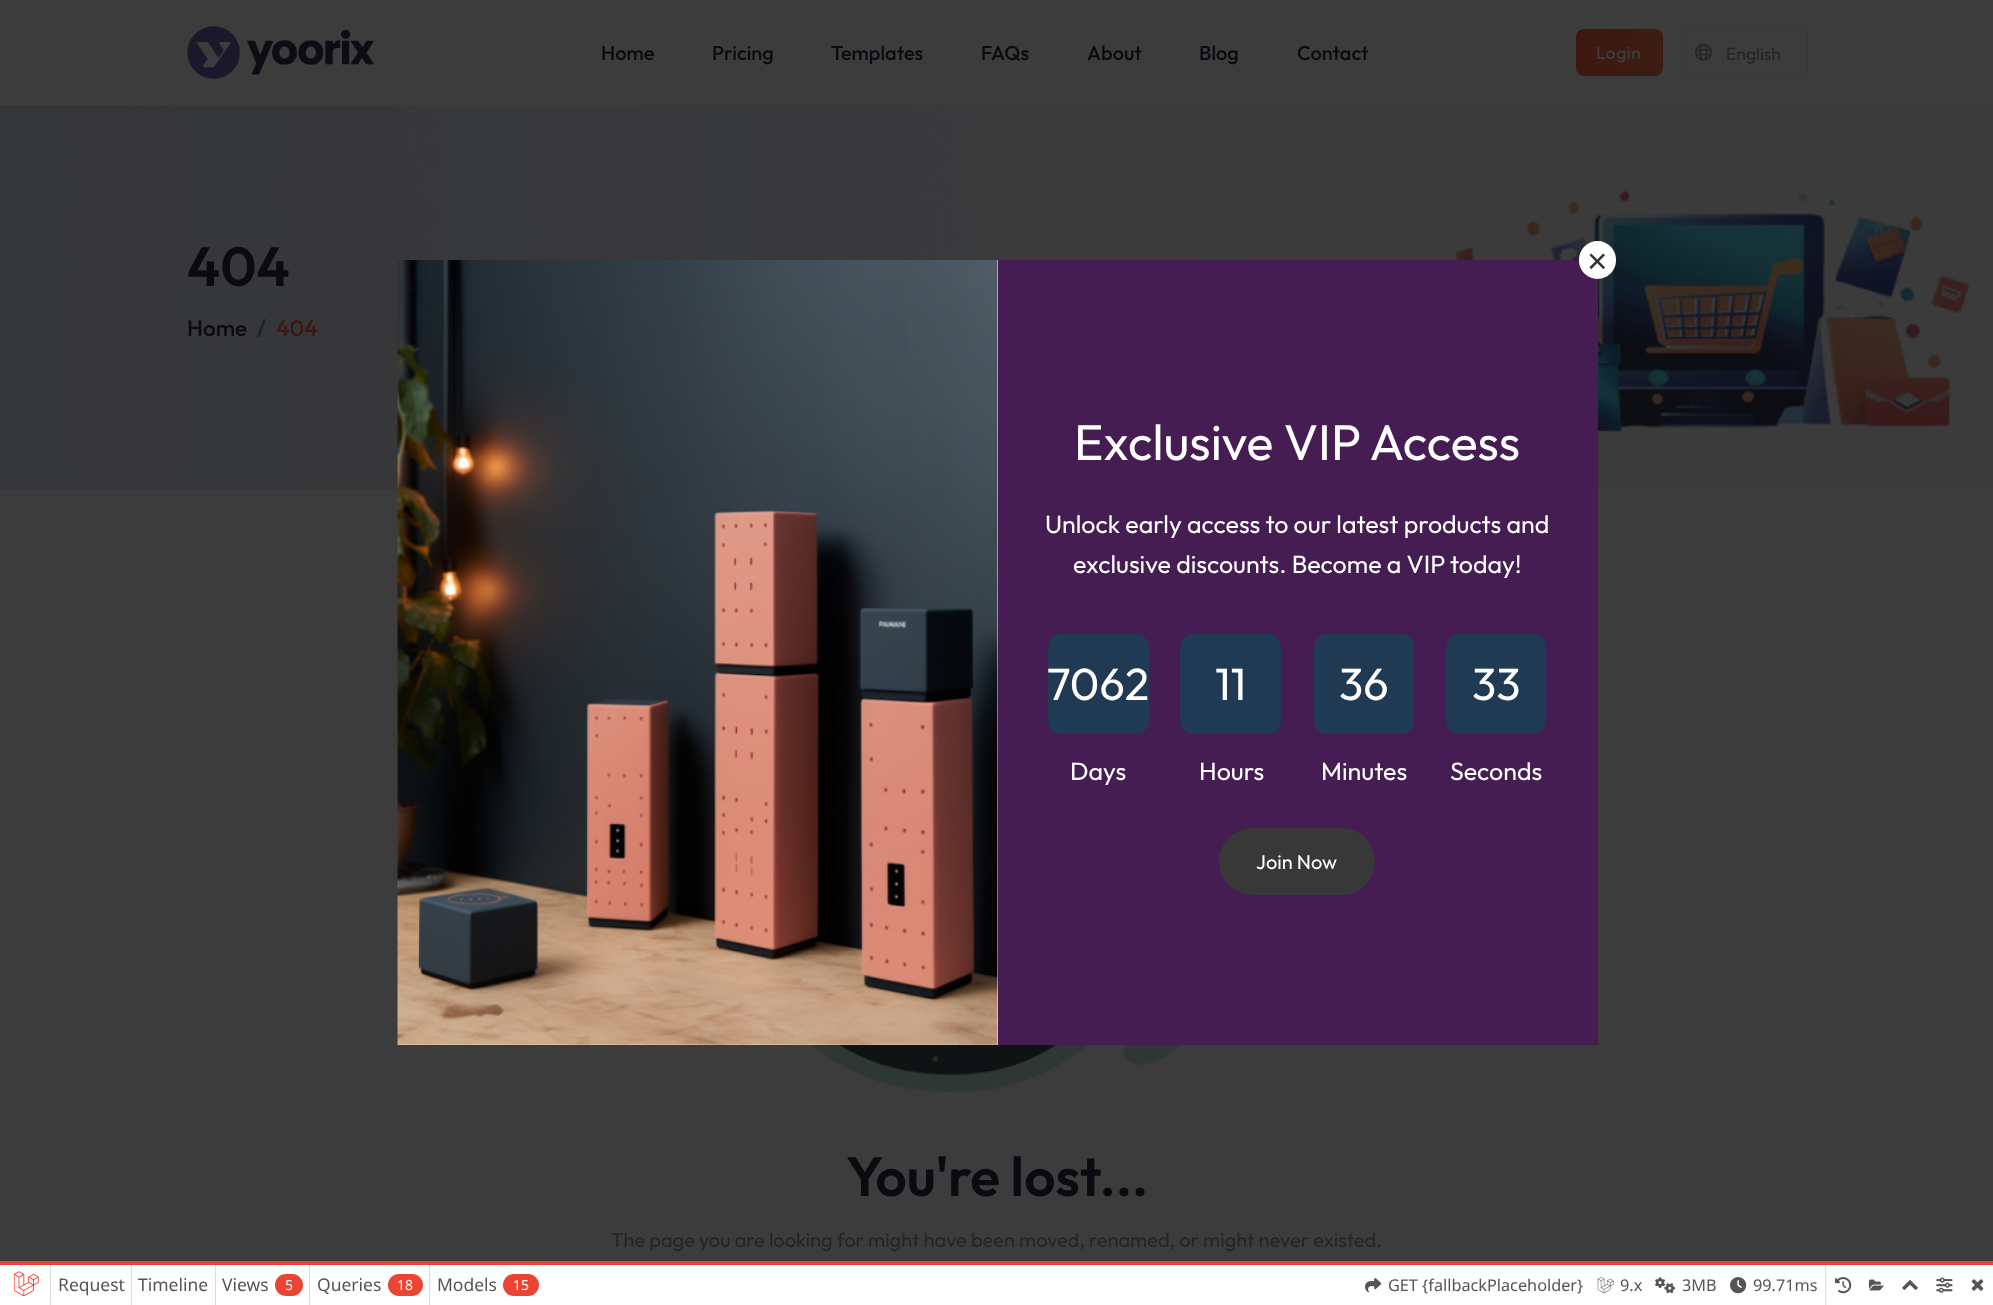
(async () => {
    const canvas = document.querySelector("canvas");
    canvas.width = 1993;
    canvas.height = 1305;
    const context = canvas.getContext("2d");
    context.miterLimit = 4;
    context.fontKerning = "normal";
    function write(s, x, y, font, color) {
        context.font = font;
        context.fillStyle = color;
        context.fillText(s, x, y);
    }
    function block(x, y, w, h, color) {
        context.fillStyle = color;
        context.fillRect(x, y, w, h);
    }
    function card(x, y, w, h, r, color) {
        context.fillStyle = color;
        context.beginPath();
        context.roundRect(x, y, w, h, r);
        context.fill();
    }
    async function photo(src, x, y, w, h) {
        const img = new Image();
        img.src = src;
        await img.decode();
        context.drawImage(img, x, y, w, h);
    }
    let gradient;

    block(0, 0, 1993, 1305, "rgb(60, 60, 60)");
    await photo("media/1.png", 187, 26, 187, 53);
    write("Home", 601, 60, "500 20px Outfit", "rgb(11, 10, 17)");
    write("Pricing", 712, 60, "500 20px Outfit", "rgb(11, 10, 17)");
    write("Templates", 831, 60, "500 20px Outfit", "rgb(11, 10, 17)");
    write("FAQs", 981, 60, "500 20px Outfit", "rgb(11, 10, 17)");
    write("About", 1087, 60, "500 20px Outfit", "rgb(11, 10, 17)");
    write("Blog", 1199, 60, "500 20px Outfit", "rgb(11, 10, 17)");
    write("Contact", 1297, 60, "500 20px Outfit", "rgb(11, 10, 17)");
    gradient = context.createLinearGradient(1574, 33, 1664, 72);
    gradient.addColorStop(0.15, "rgb(60, 24, 17)");
    gradient.addColorStop(0.85, "rgb(60, 28, 18)");
    context.fillStyle = gradient;
    context.beginPath();
    context.roundRect(1576, 29, 87, 47, 8);
    context.fill();
    context.letterSpacing = "0.5px";
    write("Login", 1596, 59, "500 17.5px Outfit", "rgb(60, 60, 60)");
    context.beginPath();
    context.roundRect(1681.5, 29.5, 126, 46, 5.5);
    context.strokeStyle = "rgb(56, 56, 56)";
    context.stroke();
    await photo("media/2.png", 1695, 43, 17, 18);
    context.letterSpacing = "0px";
    write("English", 1726, 60, "17.5px Outfit", "rgb(37, 37, 37)");
    await photo("media/3.png", 0, 105, 1993, 385);
    write("404", 187, 286, "600 55px Outfit", "rgb(11, 10, 17)");
    write("Home", 187, 336, "500 22.5px Outfit", "rgb(11, 10, 17)");
    write("/", 257, 336, "500 22.5px Outfit", "rgb(30, 32, 34)");
    write("404", 276, 336, "500 22.5px Outfit", "rgb(60, 24, 17)");
    block(998, 260, 600, 785, "rgb(69, 29, 83)");
    card(1579, 241, 37, 38, 18.5, "rgb(255, 255, 255)");
    write("×", 1587, 273, "35px Liberation Sans", "rgb(51, 51, 51)");
    block(398, 260, 600, 785, "rgb(255, 255, 255)");
    await photo("media/4.png", 397, 260, 601, 785);
    write("Exclusive VIP Access", 1074, 460, "50px Outfit", "rgb(255, 255, 255)");
    write("Unlock early access to our latest products and", 1045, 533, "25px Outfit", "rgb(255, 255, 255)");
    write("exclusive discounts. Become a VIP today!", 1073, 573, "25px Outfit", "rgb(255, 255, 255)");
    card(1048, 634, 101, 100, 13, "rgb(31, 58, 82)");
    write("7062", 1047, 700, "45px Outfit", "rgb(255, 255, 255)");
    write("Days", 1070, 780, "25px Outfit", "rgb(255, 255, 255)");
    card(1180, 634, 101, 100, 13, "rgb(31, 58, 82)");
    write("11", 1215, 700, "45px Outfit", "rgb(255, 255, 255)");
    write("Hours", 1199, 780, "25px Outfit", "rgb(255, 255, 255)");
    card(1314, 634, 100, 100, 13, "rgb(31, 58, 82)");
    write("36", 1339, 700, "45px Outfit", "rgb(255, 255, 255)");
    write("Minutes", 1321, 780, "25px Outfit", "rgb(255, 255, 255)");
    card(1446, 634, 100, 100, 13, "rgb(31, 58, 82)");
    write("33", 1472, 700, "45px Outfit", "rgb(255, 255, 255)");
    write("Seconds", 1450, 780, "25px Outfit", "rgb(255, 255, 255)");
    card(1219, 828, 156, 67, 33.5, "rgb(56, 56, 56)");
    write("Join Now", 1256, 869, "20px Outfit", "rgb(255, 255, 255)");
    await photo("media/5.png", 811, 1045, 372, 48);
    write("You're lost...", 846, 1196, "600 55px Outfit", "rgb(11, 10, 17)");
    write("The page you are looking for might have been moved, renamed, or might never existed.", 611, 1247, "20px Outfit", "rgb(37, 37, 37)");
    block(0, 1265, 1993, 40, "rgb(255, 255, 255)");
    block(0, 1261, 1993, 4, "rgb(235, 68, 50)");
    await photo("media/6.png", 14, 1271, 25, 25);
    block(50, 1265, 1, 40, "rgb(221, 221, 221)");
    write("Request", 58, 1291, "17.5px Noto Sans", "rgb(85, 85, 85)");
    block(131, 1265, 1, 40, "rgb(221, 221, 221)");
    write("Timeline", 138, 1291, "17.5px Noto Sans", "rgb(85, 85, 85)");
    block(215, 1265, 1, 40, "rgb(221, 221, 221)");
    write("Views", 222, 1291, "17.5px Noto Sans", "rgb(85, 85, 85)");
    card(275, 1274, 28, 22, 11, "rgb(235, 68, 50)");
    write("5", 285, 1290, "14px Noto Sans", "rgb(255, 255, 255)");
    block(309, 1265, 1, 40, "rgb(221, 221, 221)");
    write("Queries", 317, 1291, "17.5px Noto Sans", "rgb(85, 85, 85)");
    card(388, 1274, 35, 22, 11, "rgb(235, 68, 50)");
    write("18", 397, 1290, "14px Noto Sans", "rgb(255, 255, 255)");
    block(429, 1265, 1, 40, "rgb(221, 221, 221)");
    write("Models", 437, 1291, "17.5px Noto Sans", "rgb(85, 85, 85)");
    card(503, 1274, 36, 22, 11, "rgb(235, 68, 50)");
    write("15", 513, 1290, "14px Noto Sans", "rgb(255, 255, 255)");
    await photo("media/7.png", 1365, 1278, 17, 15);
    write("GET {fallbackPlaceholder}", 1388, 1291, "16.25px Noto Sans", "rgb(85, 85, 85)");
    await photo("media/8.png", 1597, 1277, 17, 17);
    write("9.x", 1620, 1291, "16.25px Noto Sans", "rgb(85, 85, 85)");
    await photo("media/9.png", 1655, 1277, 21, 17);
    write("3MB", 1682, 1291, "16.25px Noto Sans", "rgb(85, 85, 85)");
    await photo("media/10.png", 1730, 1277, 17, 17);
    write("99.71ms", 1753, 1291, "16.25px Noto Sans", "rgb(85, 85, 85)");
    block(1825, 1265, 1, 40, "rgb(221, 221, 221)");
    await photo("media/11.png", 1835, 1277, 17, 17);
    await photo("media/12.png", 1868, 1279, 16, 12);
    await photo("media/13.png", 1902, 1280, 16, 10);
    await photo("media/14.png", 1936, 1277, 17, 16);
    await photo("media/15.png", 1971, 1279, 13, 12);
})();
